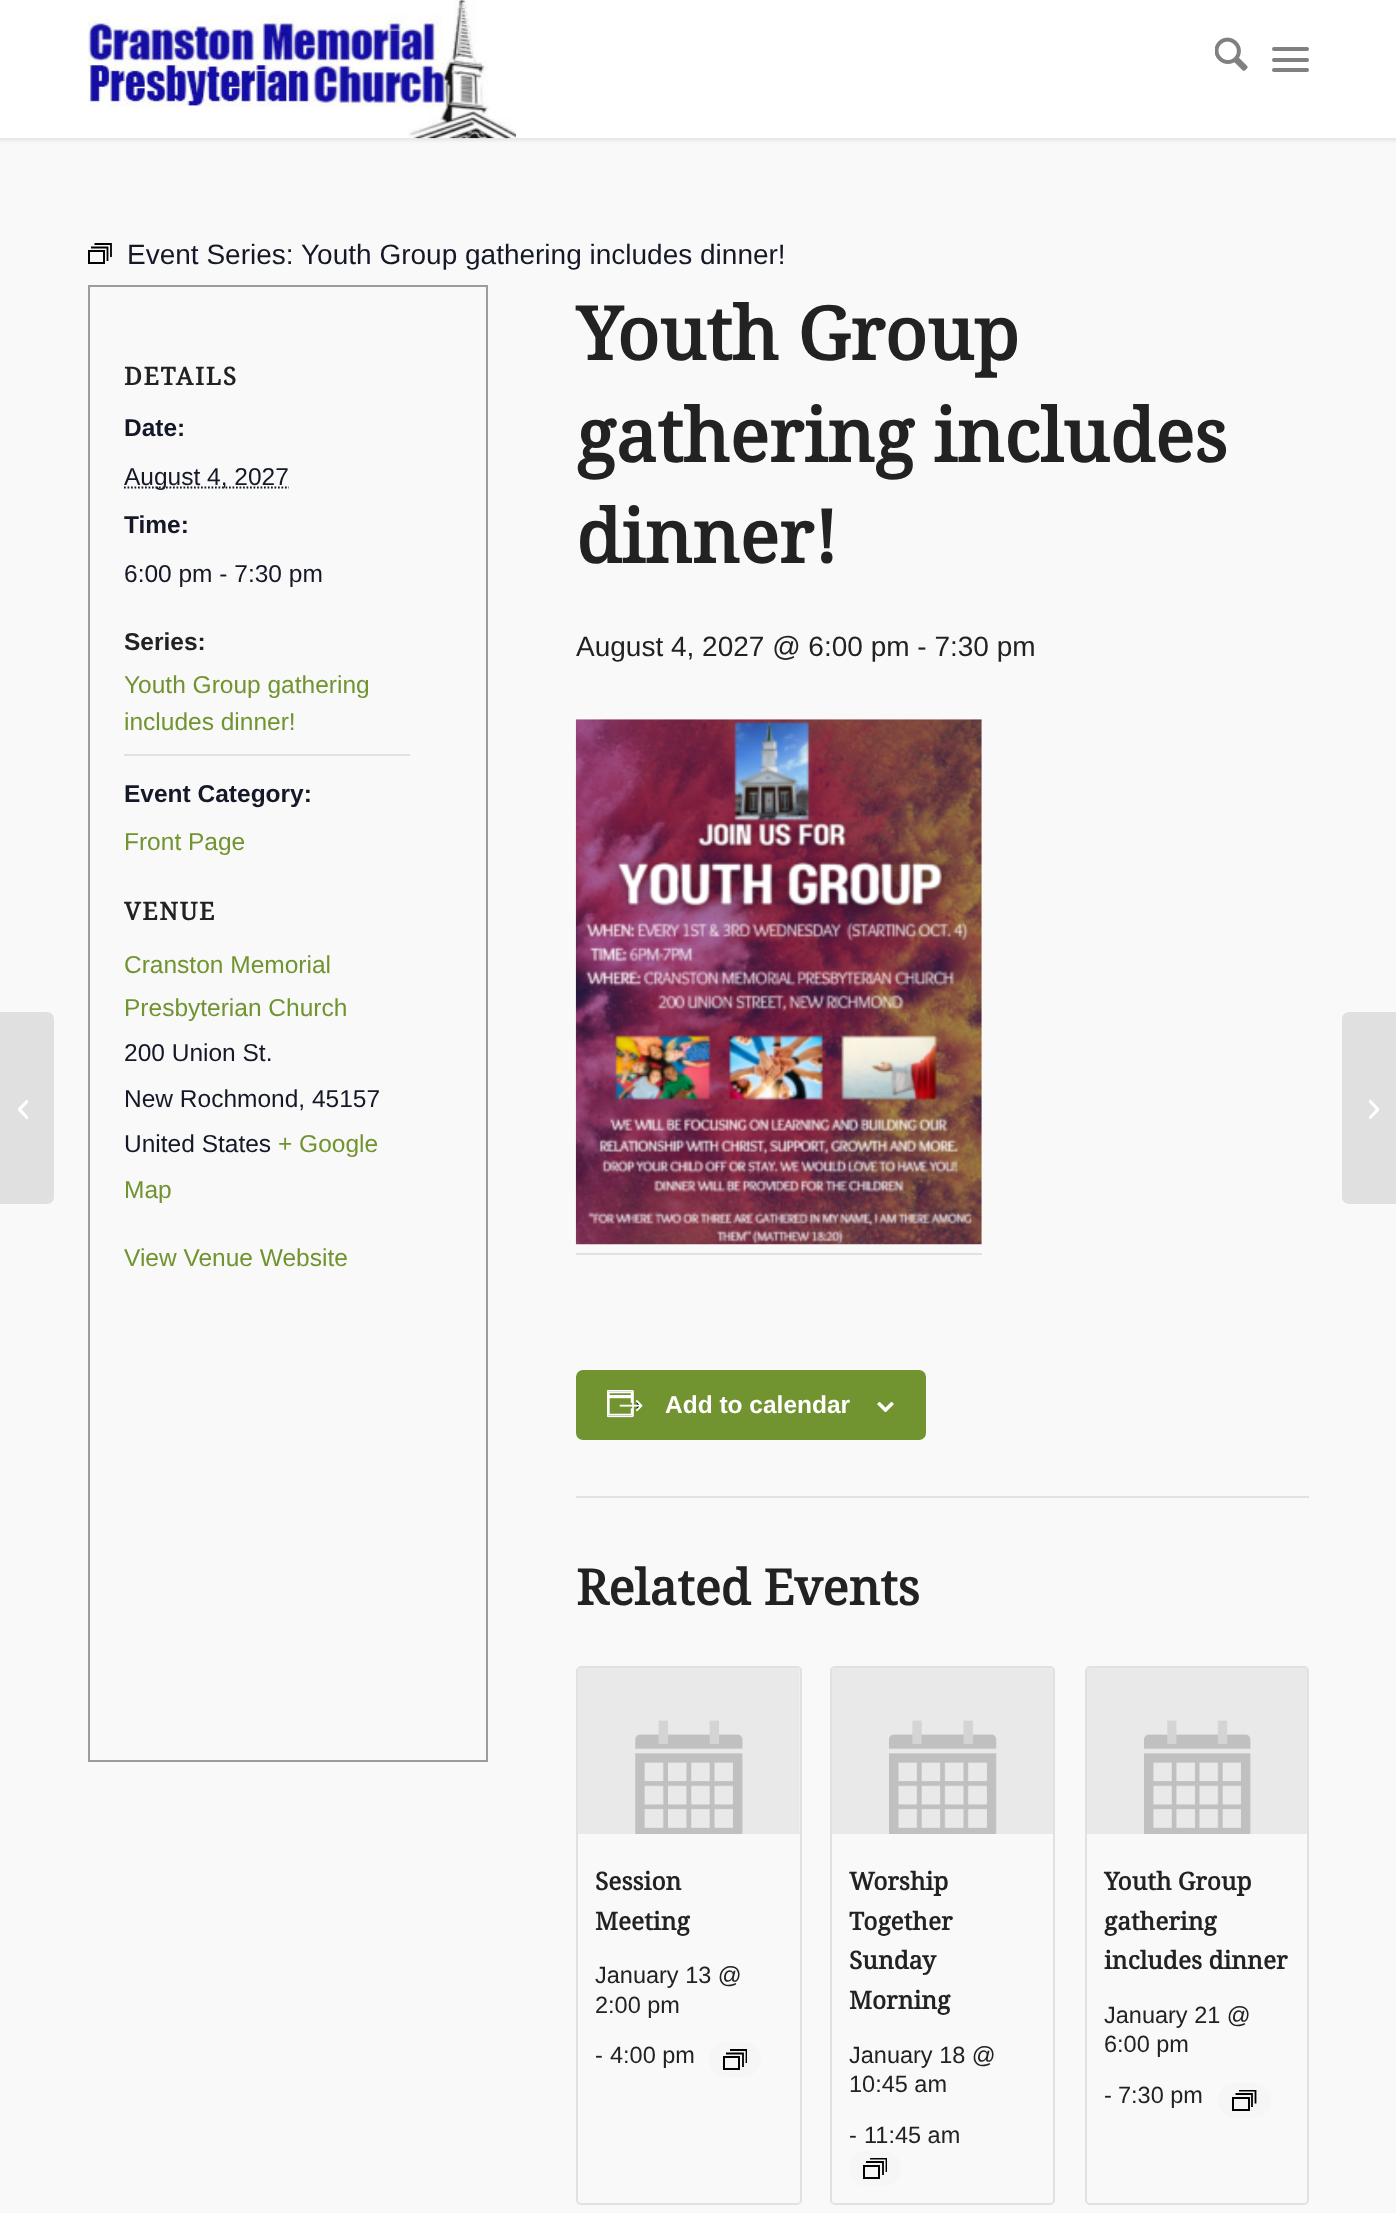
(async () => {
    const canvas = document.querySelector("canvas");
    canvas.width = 1396;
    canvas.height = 2213;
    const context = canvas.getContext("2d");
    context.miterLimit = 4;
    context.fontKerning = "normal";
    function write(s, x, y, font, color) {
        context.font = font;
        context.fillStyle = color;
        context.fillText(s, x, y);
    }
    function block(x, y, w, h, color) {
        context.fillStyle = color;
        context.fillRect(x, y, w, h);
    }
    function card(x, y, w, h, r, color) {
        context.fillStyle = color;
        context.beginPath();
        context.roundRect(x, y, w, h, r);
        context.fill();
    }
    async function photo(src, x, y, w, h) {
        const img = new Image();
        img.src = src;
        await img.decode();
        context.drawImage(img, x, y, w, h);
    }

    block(0, 0, 1396, 2213, "rgb(249, 249, 249)");
    context.fillStyle = "rgba(0, 0, 0, 0.1)";
    context.filter = "blur(2px)";
    context.beginPath();
    context.rect(-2, -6, 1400, 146);
    context.fill();
    context.filter = "none";
    block(0, 0, 1396, 138, "rgb(255, 255, 255)");
    await photo("media/1.png", 87, 0, 430, 139);
    await photo("media/2.png", 1215, 37, 33, 34);
    card(1272, 58, 37, 4, 2, "rgb(128, 128, 128)");
    card(1272, 47, 37, 4, 2, "rgb(128, 128, 128)");
    card(1272, 68, 37, 4, 2, "rgb(128, 128, 128)");
    context.fillStyle = "rgb(224, 224, 224)";
    context.beginPath();
    context.roundRect(0, 1012, 54, 192, [0, 7, 7, 0]);
    context.fill();
    await photo("media/3.png", 18, 1099, 10, 20);
    context.strokeStyle = "rgb(0, 0, 0)";
    context.lineWidth = 2;
    context.strokeRect(89, 251, 15, 12);
    context.beginPath();
    context.moveTo(91, 247.5);
    context.lineTo(107.5, 247.5);
    context.lineTo(107.5, 261);
    context.moveTo(94.5, 244);
    context.lineTo(111, 244);
    context.lineTo(111, 257);
    context.lineWidth = 1.8;
    context.stroke();
    write("Event Series:", 127, 264, "28px Liberation Sans", "rgb(20, 24, 39)");
    write("Youth Group gathering includes dinner!", 301, 264, "28px Liberation Sans", "rgb(20, 24, 39)");
    context.strokeStyle = "rgb(156, 156, 156)";
    context.lineWidth = 2;
    context.strokeRect(89, 286, 398, 1475);
    context.letterSpacing = "1.75px";
    write("DETAILS", 124, 385, "bold 24.5px Droid Serif", "rgb(34, 34, 34)");
    context.letterSpacing = "0px";
    write("Date:", 124, 436, "bold 24.5px Liberation Sans", "rgb(20, 24, 39)");
    context.beginPath();
    context.moveTo(124, 487.5);
    context.lineTo(289, 487.5);
    context.strokeStyle = "rgb(20, 24, 39)";
    context.lineWidth = 1.8;
    context.setLineDash([1.75, 1.75]);
    context.stroke();
    write("August 4, 2027", 124, 485, "24.5px Liberation Sans", "rgb(20, 24, 39)");
    write("Time:", 124, 533, "bold 24.5px Liberation Sans", "rgb(20, 24, 39)");
    write("6:00 pm - 7:30 pm", 124, 582, "24.5px Liberation Sans", "rgb(20, 24, 39)");
    write("Series:", 124, 650, "bold 24.5px Liberation Sans", "rgb(34, 34, 34)");
    block(124, 754, 286, 2, "rgb(225, 225, 225)");
    write("Youth Group gathering", 124, 693, "24.5px Liberation Sans", "rgb(113, 148, 48)");
    write("includes dinner!", 124, 730, "24.5px Liberation Sans", "rgb(113, 148, 48)");
    write("Event Category:", 124, 802, "bold 24.5px Liberation Sans", "rgb(20, 24, 39)");
    write("Front Page", 124, 850, "24.5px Liberation Sans", "rgb(113, 148, 48)");
    context.letterSpacing = "1.75px";
    write("VENUE", 124, 920, "bold 24.5px Droid Serif", "rgb(34, 34, 34)");
    context.letterSpacing = "0px";
    write("Cranston Memorial", 124, 973, "24.5px Liberation Sans", "rgb(113, 148, 48)");
    write("Presbyterian Church", 124, 1016, "24.5px Liberation Sans", "rgb(113, 148, 48)");
    write("200 Union St.", 124, 1061, "24.5px Liberation Sans", "rgb(20, 24, 39)");
    write("New Rochmond, 45157", 124, 1107, "24.5px Liberation Sans", "rgb(20, 24, 39)");
    write("United States", 124, 1152, "24.5px Liberation Sans", "rgb(20, 24, 39)");
    write("+ Google", 278, 1152, "24.5px Liberation Sans", "rgb(113, 148, 48)");
    write("Map", 124, 1198, "24.5px Liberation Sans", "rgb(113, 148, 48)");
    write("View Venue Website", 124, 1266, "24.5px Liberation Sans", "rgb(113, 148, 48)");
    write("Youth Group", 576, 360, "bold 73.5px Droid Serif", "rgb(34, 34, 34)");
    write("gathering includes", 576, 462, "bold 73.5px Droid Serif", "rgb(34, 34, 34)");
    write("dinner!", 576, 563, "bold 73.5px Droid Serif", "rgb(34, 34, 34)");
    write("August 4, 2027 @ 6:00 pm - 7:30 pm", 576, 656, "28px Liberation Sans", "rgb(34, 34, 34)");
    block(576, 1253, 406, 2, "rgb(225, 225, 225)");
    await photo("media/4.png", 575, 719, 407, 526);
    context.fillStyle = "rgb(113, 148, 48)";
    context.beginPath();
    context.roundRect(577, 1371, 348, 68, 6);
    context.fill();
    context.strokeStyle = "rgb(113, 148, 48)";
    context.lineWidth = 2;
    context.setLineDash([]);
    context.stroke();
    await photo("media/5.png", 607, 1390, 36, 28);
    write("Add to calendar", 665, 1413, "bold 24.5px Liberation Sans", "rgb(255, 255, 255)");
    await photo("media/6.png", 877, 1402, 17, 10);
    block(576, 1496, 733, 2, "rgb(225, 225, 225)");
    write("Related Events", 576, 1605, "bold 49px Droid Serif", "rgb(34, 34, 34)");
    context.beginPath();
    context.roundRect(577, 1667, 224, 537, 4);
    context.strokeStyle = "rgb(225, 225, 225)";
    context.stroke();
    await photo("media/7.png", 578, 1668, 222, 166);
    write("Session", 595, 1890, "bold 24.5px Droid Serif", "rgb(34, 34, 34)");
    write("Meeting", 595, 1930, "bold 24.5px Droid Serif", "rgb(34, 34, 34)");
    write("January 13 @", 595, 1983, "23.5px Liberation Sans", "rgb(34, 34, 34)");
    write("2:00 pm", 595, 2013, "23.5px Liberation Sans", "rgb(34, 34, 34)");
    write("-", 595, 2063, "23.5px Liberation Sans", "rgb(34, 34, 34)");
    write("4:00 pm", 610, 2063, "23.5px Liberation Sans", "rgb(34, 34, 34)");
    card(709, 2042, 52, 35, 17.5, "rgb(247, 246, 246)");
    context.strokeStyle = "rgb(0, 0, 0)";
    context.strokeRect(724, 2057, 15, 12);
    context.beginPath();
    context.moveTo(726, 2053.5);
    context.lineTo(743, 2053.5);
    context.lineTo(743, 2067);
    context.lineWidth = 1.8;
    context.stroke();
    context.save();
    context.beginPath();
    context.rect(723, 2049, 24, 21);
    context.clip();
    context.beginPath();
    context.moveTo(730, 2050);
    context.lineTo(746.5, 2050);
    context.lineTo(746.5, 2063);
    context.stroke();
    context.restore();
    context.beginPath();
    context.roundRect(831, 1667, 223, 537, 4);
    context.strokeStyle = "rgb(225, 225, 225)";
    context.lineWidth = 2;
    context.stroke();
    await photo("media/8.png", 832, 1668, 221, 166);
    write("Worship", 849, 1890, "bold 24.5px Droid Serif", "rgb(34, 34, 34)");
    write("Together", 849, 1930, "bold 24.5px Droid Serif", "rgb(34, 34, 34)");
    write("Sunday", 849, 1969, "bold 24.5px Droid Serif", "rgb(34, 34, 34)");
    write("Morning", 849, 2009, "bold 24.5px Droid Serif", "rgb(34, 34, 34)");
    write("January 18 @", 849, 2063, "23.5px Liberation Sans", "rgb(34, 34, 34)");
    write("10:45 am", 849, 2092, "23.5px Liberation Sans", "rgb(34, 34, 34)");
    write("-", 849, 2143, "23.5px Liberation Sans", "rgb(34, 34, 34)");
    write("11:45 am", 864, 2143, "23.5px Liberation Sans", "rgb(34, 34, 34)");
    card(849, 2151, 52, 35, 17.5, "rgb(247, 246, 246)");
    context.strokeStyle = "rgb(0, 0, 0)";
    context.strokeRect(864, 2166, 15, 12);
    context.beginPath();
    context.moveTo(866, 2162);
    context.lineTo(883, 2162);
    context.lineTo(883, 2175);
    context.lineWidth = 1.8;
    context.stroke();
    context.save();
    context.beginPath();
    context.rect(863, 2158, 24, 21);
    context.clip();
    context.beginPath();
    context.moveTo(870, 2158.5);
    context.lineTo(886.5, 2158.5);
    context.lineTo(886.5, 2172);
    context.stroke();
    context.restore();
    context.beginPath();
    context.roundRect(1086, 1667, 222, 537, 4);
    context.strokeStyle = "rgb(225, 225, 225)";
    context.lineWidth = 2;
    context.stroke();
    await photo("media/9.png", 1087, 1668, 220, 166);
    write("Youth Group", 1104, 1890, "bold 24.5px Droid Serif", "rgb(34, 34, 34)");
    write("gathering", 1104, 1930, "bold 24.5px Droid Serif", "rgb(34, 34, 34)");
    write("includes dinner", 1104, 1969, "bold 24.5px Droid Serif", "rgb(34, 34, 34)");
    write("January 21 @", 1104, 2023, "23.5px Liberation Sans", "rgb(34, 34, 34)");
    write("6:00 pm", 1104, 2052, "23.5px Liberation Sans", "rgb(34, 34, 34)");
    write("-", 1104, 2103, "23.5px Liberation Sans", "rgb(34, 34, 34)");
    write("7:30 pm", 1118, 2103, "23.5px Liberation Sans", "rgb(34, 34, 34)");
    card(1218, 2083, 53, 35, 17.5, "rgb(247, 246, 246)");
    context.strokeStyle = "rgb(0, 0, 0)";
    context.strokeRect(1233, 2098, 16, 12);
    context.beginPath();
    context.moveTo(1235.5, 2094);
    context.lineTo(1252, 2094);
    context.lineTo(1252, 2107);
    context.lineWidth = 1.8;
    context.stroke();
    context.save();
    context.beginPath();
    context.rect(1232, 2090, 25, 21);
    context.clip();
    context.beginPath();
    context.moveTo(1239, 2090.5);
    context.lineTo(1255.5, 2090.5);
    context.lineTo(1255.5, 2103.5);
    context.stroke();
    context.restore();
    context.fillStyle = "rgb(224, 224, 224)";
    context.beginPath();
    context.moveTo(1349, 1012);
    context.lineTo(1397, 1012);
    context.lineTo(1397, 1204);
    context.lineTo(1349, 1204);
    context.bezierCurveTo(1345, 1204, 1342, 1201, 1342, 1197);
    context.lineTo(1342, 1019);
    context.bezierCurveTo(1342, 1015, 1345, 1012, 1349, 1012);
    context.closePath();
    context.fill();
    await photo("media/10.png", 1369, 1099, 10, 20);
})();
